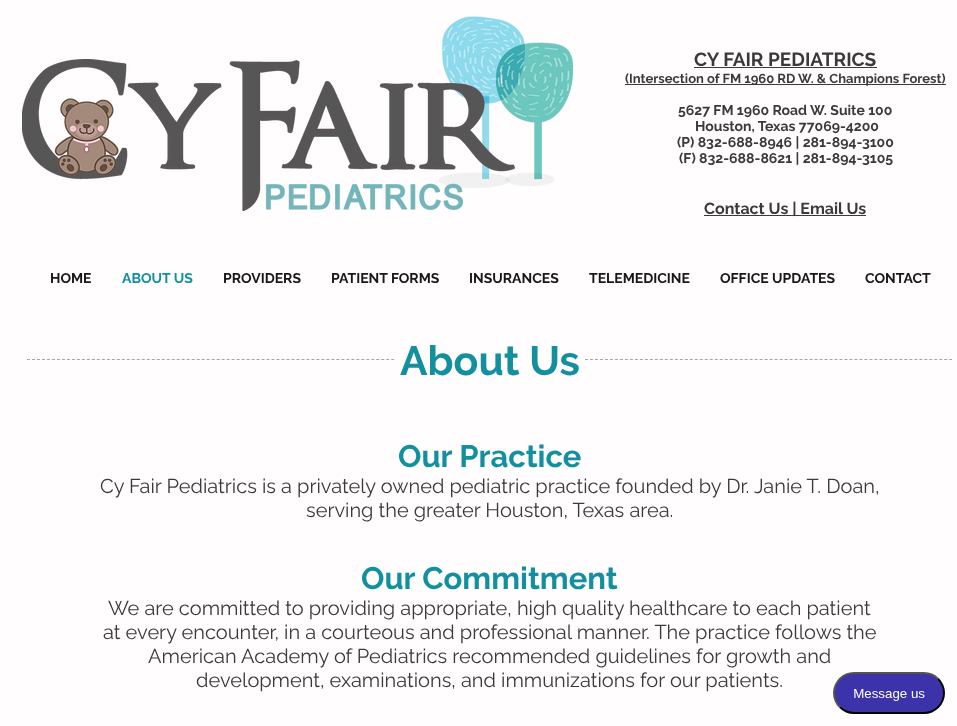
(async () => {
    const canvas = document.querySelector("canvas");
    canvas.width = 957;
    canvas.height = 726;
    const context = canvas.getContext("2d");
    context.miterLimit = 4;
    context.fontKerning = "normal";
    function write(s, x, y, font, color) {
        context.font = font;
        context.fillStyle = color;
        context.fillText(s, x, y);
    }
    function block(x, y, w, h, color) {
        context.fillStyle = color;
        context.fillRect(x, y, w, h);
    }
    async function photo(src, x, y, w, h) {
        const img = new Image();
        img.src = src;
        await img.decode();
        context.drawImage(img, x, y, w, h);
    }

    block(0, 0, 957, 726, "rgb(255, 253, 253)");
    await photo("media/1.png", 439, 16, 134, 172);
    write("CY FAIR PEDIATRICS", 694, 66, "bold 19px Raleway", "rgb(59, 58, 58)");
    block(694, 67, 183, 1, "rgb(59, 58, 58)");
    block(625, 84, 321, 1, "rgb(59, 58, 58)");
    write("(Intersection of FM 1960 RD W. & Champions Forest)", 625, 83, "bold 13px 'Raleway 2'", "rgb(59, 58, 58)");
    write("5627 FM 1960 Road", 678, 115, "bold 14px 'Raleway 2'", "rgb(59, 58, 58)");
    write("W. Suite 100", 810, 115, "bold 14px 'Raleway 2'", "rgb(59, 58, 58)");
    write("Houston, Texas 77069-4200", 695, 131, "bold 14px 'Raleway 2'", "rgb(59, 58, 58)");
    write("(P) 832-688-8946 | 281-894-3100", 677, 147, "bold 14px 'Raleway 2'", "rgb(59, 58, 58)");
    write("(F) 832-688-8621 | 281-894-3105", 679, 163, "bold 14px 'Raleway 2'", "rgb(59, 58, 58)");
    await photo("media/2.png", 22, 59, 493, 152);
    block(704, 215, 162, 1, "rgb(59, 58, 58)");
    write("Contact Us | Email Us", 704, 214, "bold 16px 'Raleway 2'", "rgb(59, 58, 58)");
    write("HOME", 50, 283, "bold 14px 'Raleway 2'", "rgb(25, 24, 24)");
    write("ABOUT US", 122, 283, "bold 14px 'Raleway 2'", "rgb(19, 144, 160)");
    write("PROVIDERS", 223, 283, "bold 14px 'Raleway 2'", "rgb(25, 24, 24)");
    write("PATIENT FORMS", 331, 283, "bold 14px 'Raleway 2'", "rgb(25, 24, 24)");
    write("INSURANCES", 469, 283, "bold 14px 'Raleway 2'", "rgb(25, 24, 24)");
    write("TELEMEDICINE", 589, 283, "bold 14px 'Raleway 2'", "rgb(25, 24, 24)");
    write("OFFICE UPDATES", 720, 283, "bold 14px 'Raleway 2'", "rgb(25, 24, 24)");
    write("CONTACT", 865, 283, "bold 14px 'Raleway 2'", "rgb(25, 24, 24)");
    context.beginPath();
    context.moveTo(27, 359.5);
    context.lineTo(394, 359.5);
    context.strokeStyle = "rgb(166, 164, 164)";
    context.setLineDash([3, 1.99]);
    context.stroke();
    write("About Us", 400, 375, "bold 41px Raleway", "rgb(19, 144, 160)");
    context.beginPath();
    context.moveTo(585, 359.5);
    context.lineTo(952, 359.5);
    context.stroke();
    write("Our Practice", 398, 467, "bold 31px Raleway", "rgb(19, 144, 160)");
    write("Cy Fair Pediatrics is a privately owned pediatric practice founded by Dr. Janie T. Doan,", 100, 493, "20px Raleway", "rgb(59, 58, 58)");
    write("serving the greater Houston, Texas area.", 306, 517, "20px Raleway", "rgb(59, 58, 58)");
    write("Our Commitment", 361, 589, "bold 31px Raleway", "rgb(19, 144, 160)");
    write("We are committed to providing appropriate, high quality healthcare to each patient", 108, 615, "20px Raleway", "rgb(59, 58, 58)");
    write("at every encounter, in a courteous and professional manner. The practice follows the", 103, 639, "20px Raleway", "rgb(59, 58, 58)");
    write("American Academy of Pediatrics recommended guidelines for growth and", 148, 663, "20px Raleway", "rgb(59, 58, 58)");
    write("development, examinations, and immunizations for our patients.", 196, 687, "20px Raleway", "rgb(59, 58, 58)");
    await photo("media/3.png", 833, 672, 112, 42);
})();
